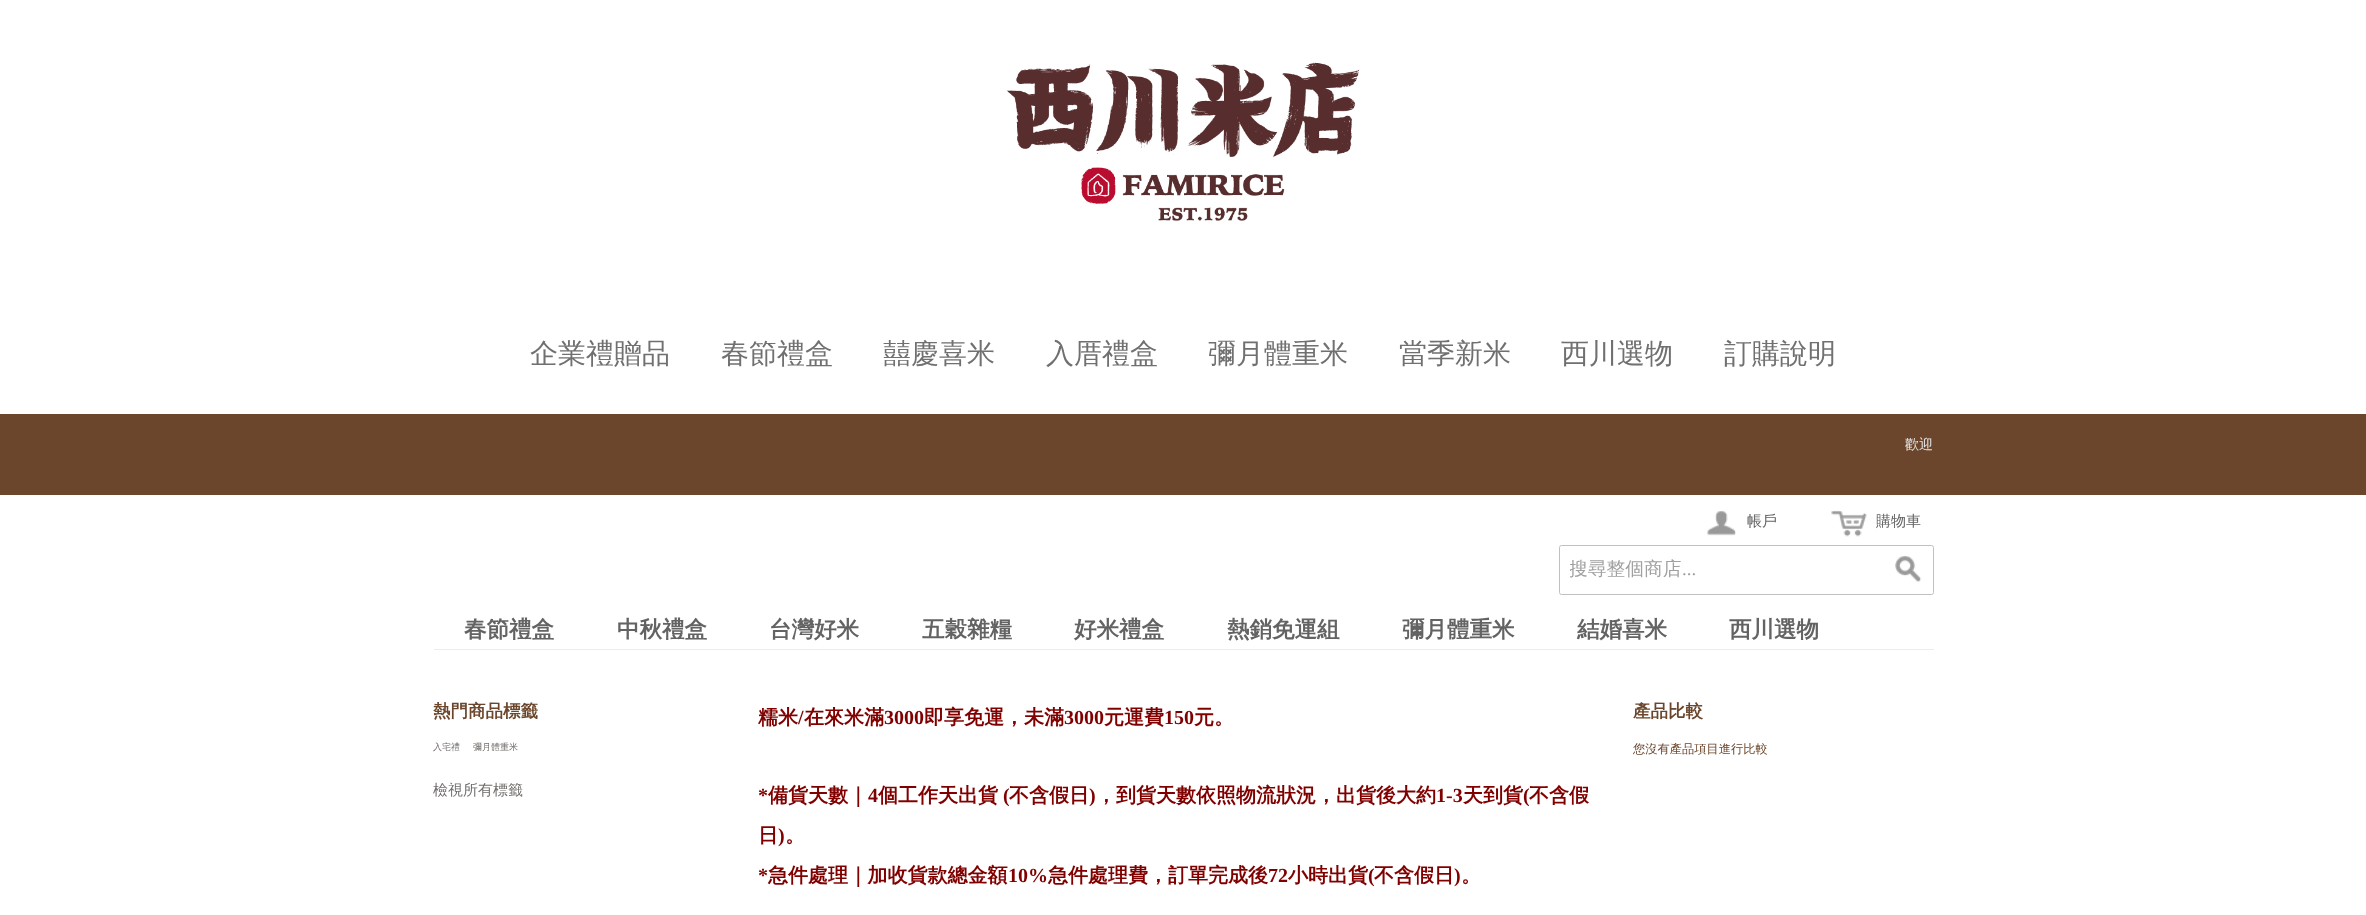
(async () => {
    const canvas = document.querySelector("canvas");
    canvas.width = 2366;
    canvas.height = 915;
    const context = canvas.getContext("2d");
    context.miterLimit = 4;
    context.fontKerning = "normal";
    function write(s, x, y, font, color) {
        context.font = font;
        context.fillStyle = color;
        context.fillText(s, x, y);
    }
    function block(x, y, w, h, color) {
        context.fillStyle = color;
        context.fillRect(x, y, w, h);
    }
    async function photo(src, x, y, w, h) {
        const img = new Image();
        img.src = src;
        await img.decode();
        context.drawImage(img, x, y, w, h);
    }

    block(0, 0, 2366, 915, "rgb(255, 255, 255)");
    await photo("media/1.png", 1007, 62, 353, 159);
    write("企業禮贈品", 530, 363, "500 28px WenQuanYi Zen Hei", "rgb(112, 112, 112)");
    write("春節禮盒", 721, 363, "500 28px WenQuanYi Zen Hei", "rgb(112, 112, 112)");
    write("囍慶喜米", 883, 363, "500 28px WenQuanYi Zen Hei", "rgb(112, 112, 112)");
    write("入厝禮盒", 1046, 363, "500 28px WenQuanYi Zen Hei", "rgb(112, 112, 112)");
    write("彌月體重米", 1208, 363, "500 28px WenQuanYi Zen Hei", "rgb(112, 112, 112)");
    write("當季新米", 1399, 363, "500 28px WenQuanYi Zen Hei", "rgb(112, 112, 112)");
    write("西川選物", 1561, 363, "500 28px WenQuanYi Zen Hei", "rgb(112, 112, 112)");
    write("訂購說明", 1724, 363, "500 28px WenQuanYi Zen Hei", "rgb(112, 112, 112)");
    block(0, 414, 2366, 81, "rgb(107, 70, 44)");
    write("歡迎", 1905, 449, "500 14px WenQuanYi Zen Hei", "rgb(230, 230, 230)");
    await photo("media/2.png", 1707, 510, 29, 26);
    write("帳戶", 1747, 526, "500 15px WenQuanYi Zen Hei", "rgb(99, 99, 99)");
    await photo("media/3.png", 1831, 510, 36, 27);
    write("購物車", 1876, 526, "500 15px WenQuanYi Zen Hei", "rgb(99, 99, 99)");
    context.beginPath();
    context.roundRect(1559.5, 545.5, 374, 49, 2);
    context.strokeStyle = "rgb(192, 192, 192)";
    context.stroke();
    context.save();
    context.beginPath();
    context.rect(1570, 558, 308, 23);
    context.clip();
    write("搜尋整個商店", 1569, 575, "500 18.75px WenQuanYi Zen Hei", "rgb(160, 160, 160)");
    context.restore();
    write("...", 1682, 575, "18.75px Liberation Serif", "rgb(160, 160, 160)");
    await photo("media/4.png", 1895, 555, 27, 27);
    block(434, 649, 1500, 1, "rgb(237, 237, 237)");
    write("春節禮盒", 464, 637, "bold 22.5px WenQuanYi Zen Hei", "rgb(99, 99, 99)");
    write("中秋禮盒", 617, 637, "bold 22.5px WenQuanYi Zen Hei", "rgb(99, 99, 99)");
    write("台灣好米", 769, 637, "bold 22.5px WenQuanYi Zen Hei", "rgb(99, 99, 99)");
    write("五穀雜糧", 922, 637, "bold 22.5px WenQuanYi Zen Hei", "rgb(99, 99, 99)");
    write("好米禮盒", 1074, 637, "bold 22.5px WenQuanYi Zen Hei", "rgb(99, 99, 99)");
    write("熱銷免運組", 1227, 637, "bold 22.5px WenQuanYi Zen Hei", "rgb(99, 99, 99)");
    write("彌月體重米", 1402, 637, "bold 22.5px WenQuanYi Zen Hei", "rgb(99, 99, 99)");
    write("結婚喜米", 1577, 637, "bold 22.5px WenQuanYi Zen Hei", "rgb(99, 99, 99)");
    write("西川選物", 1729, 637, "bold 22.5px WenQuanYi Zen Hei", "rgb(99, 99, 99)");
    write("熱門商品標籤", 433, 717, "bold 17.5px WenQuanYi Zen Hei", "rgb(107, 70, 44)");
    write("入宅禮", 433, 750, "500 9px WenQuanYi Zen Hei", "rgb(113, 109, 106)");
    write("彌月體重米", 473, 750, "500 9px WenQuanYi Zen Hei", "rgb(113, 109, 106)");
    write("檢視所有標籤", 433, 795, "500 15px WenQuanYi Zen Hei", "rgb(113, 109, 106)");
    write("糯米", 758, 724, "bold 20px WenQuanYi Zen Hei", "rgb(128, 0, 0)");
    write("/", 798, 724, "bold 20px Liberation Serif", "rgb(128, 0, 0)");
    write("在來米滿", 804, 724, "bold 20px WenQuanYi Zen Hei", "rgb(128, 0, 0)");
    write("3000", 884, 724, "bold 20px Liberation Serif", "rgb(128, 0, 0)");
    write("即享免運，未滿", 924, 724, "bold 20px WenQuanYi Zen Hei", "rgb(128, 0, 0)");
    write("3000", 1064, 724, "bold 20px Liberation Serif", "rgb(128, 0, 0)");
    write("元運費", 1104, 724, "bold 20px WenQuanYi Zen Hei", "rgb(128, 0, 0)");
    write("150", 1164, 724, "bold 20px Liberation Serif", "rgb(128, 0, 0)");
    write("元。", 1194, 724, "bold 20px WenQuanYi Zen Hei", "rgb(128, 0, 0)");
    write("*", 758, 802, "bold 20px Liberation Serif", "rgb(128, 0, 0)");
    write("備貨天數｜", 768, 802, "bold 20px WenQuanYi Zen Hei", "rgb(128, 0, 0)");
    write("4", 868, 802, "bold 20px Liberation Serif", "rgb(128, 0, 0)");
    write("個工作天出貨", 878, 802, "bold 20px WenQuanYi Zen Hei", "rgb(128, 0, 0)");
    write("(", 1003, 802, "bold 20px Liberation Serif", "rgb(128, 0, 0)");
    write("不含假日", 1009, 802, "bold 20px WenQuanYi Zen Hei", "rgb(128, 0, 0)");
    write(")", 1089, 802, "bold 20px Liberation Serif", "rgb(128, 0, 0)");
    write("，到貨天數依照物流狀況，出貨後大約", 1096, 802, "bold 20px WenQuanYi Zen Hei", "rgb(128, 0, 0)");
    write("1-3", 1436, 802, "bold 20px Liberation Serif", "rgb(128, 0, 0)");
    write("天到貨", 1463, 802, "bold 20px WenQuanYi Zen Hei", "rgb(128, 0, 0)");
    write("(", 1523, 802, "bold 20px Liberation Serif", "rgb(128, 0, 0)");
    write("不含假", 1529, 802, "bold 20px WenQuanYi Zen Hei", "rgb(128, 0, 0)");
    write("日", 758, 842, "bold 20px WenQuanYi Zen Hei", "rgb(128, 0, 0)");
    write(")", 778, 842, "bold 20px Liberation Serif", "rgb(128, 0, 0)");
    write("。", 785, 842, "bold 20px WenQuanYi Zen Hei", "rgb(128, 0, 0)");
    write("*", 758, 882, "bold 20px Liberation Serif", "rgb(128, 0, 0)");
    write("急件處理｜加收貨款總金額", 768, 882, "bold 20px WenQuanYi Zen Hei", "rgb(128, 0, 0)");
    write("10%", 1008, 882, "bold 20px Liberation Serif", "rgb(128, 0, 0)");
    write("急件處理費，訂單完成後", 1048, 882, "bold 20px WenQuanYi Zen Hei", "rgb(128, 0, 0)");
    write("72", 1268, 882, "bold 20px Liberation Serif", "rgb(128, 0, 0)");
    write("小時出貨", 1288, 882, "bold 20px WenQuanYi Zen Hei", "rgb(128, 0, 0)");
    write("(", 1368, 882, "bold 20px Liberation Serif", "rgb(128, 0, 0)");
    write("不含假日", 1374, 882, "bold 20px WenQuanYi Zen Hei", "rgb(128, 0, 0)");
    write(")", 1454, 882, "bold 20px Liberation Serif", "rgb(128, 0, 0)");
    write("。", 1461, 882, "bold 20px WenQuanYi Zen Hei", "rgb(128, 0, 0)");
    write("產品比較", 1633, 717, "bold 17.5px WenQuanYi Zen Hei", "rgb(107, 70, 44)");
    write("您沒有產品項目進行比較", 1633, 753, "500 12.25px WenQuanYi Zen Hei", "rgb(107, 70, 44)");
})();
